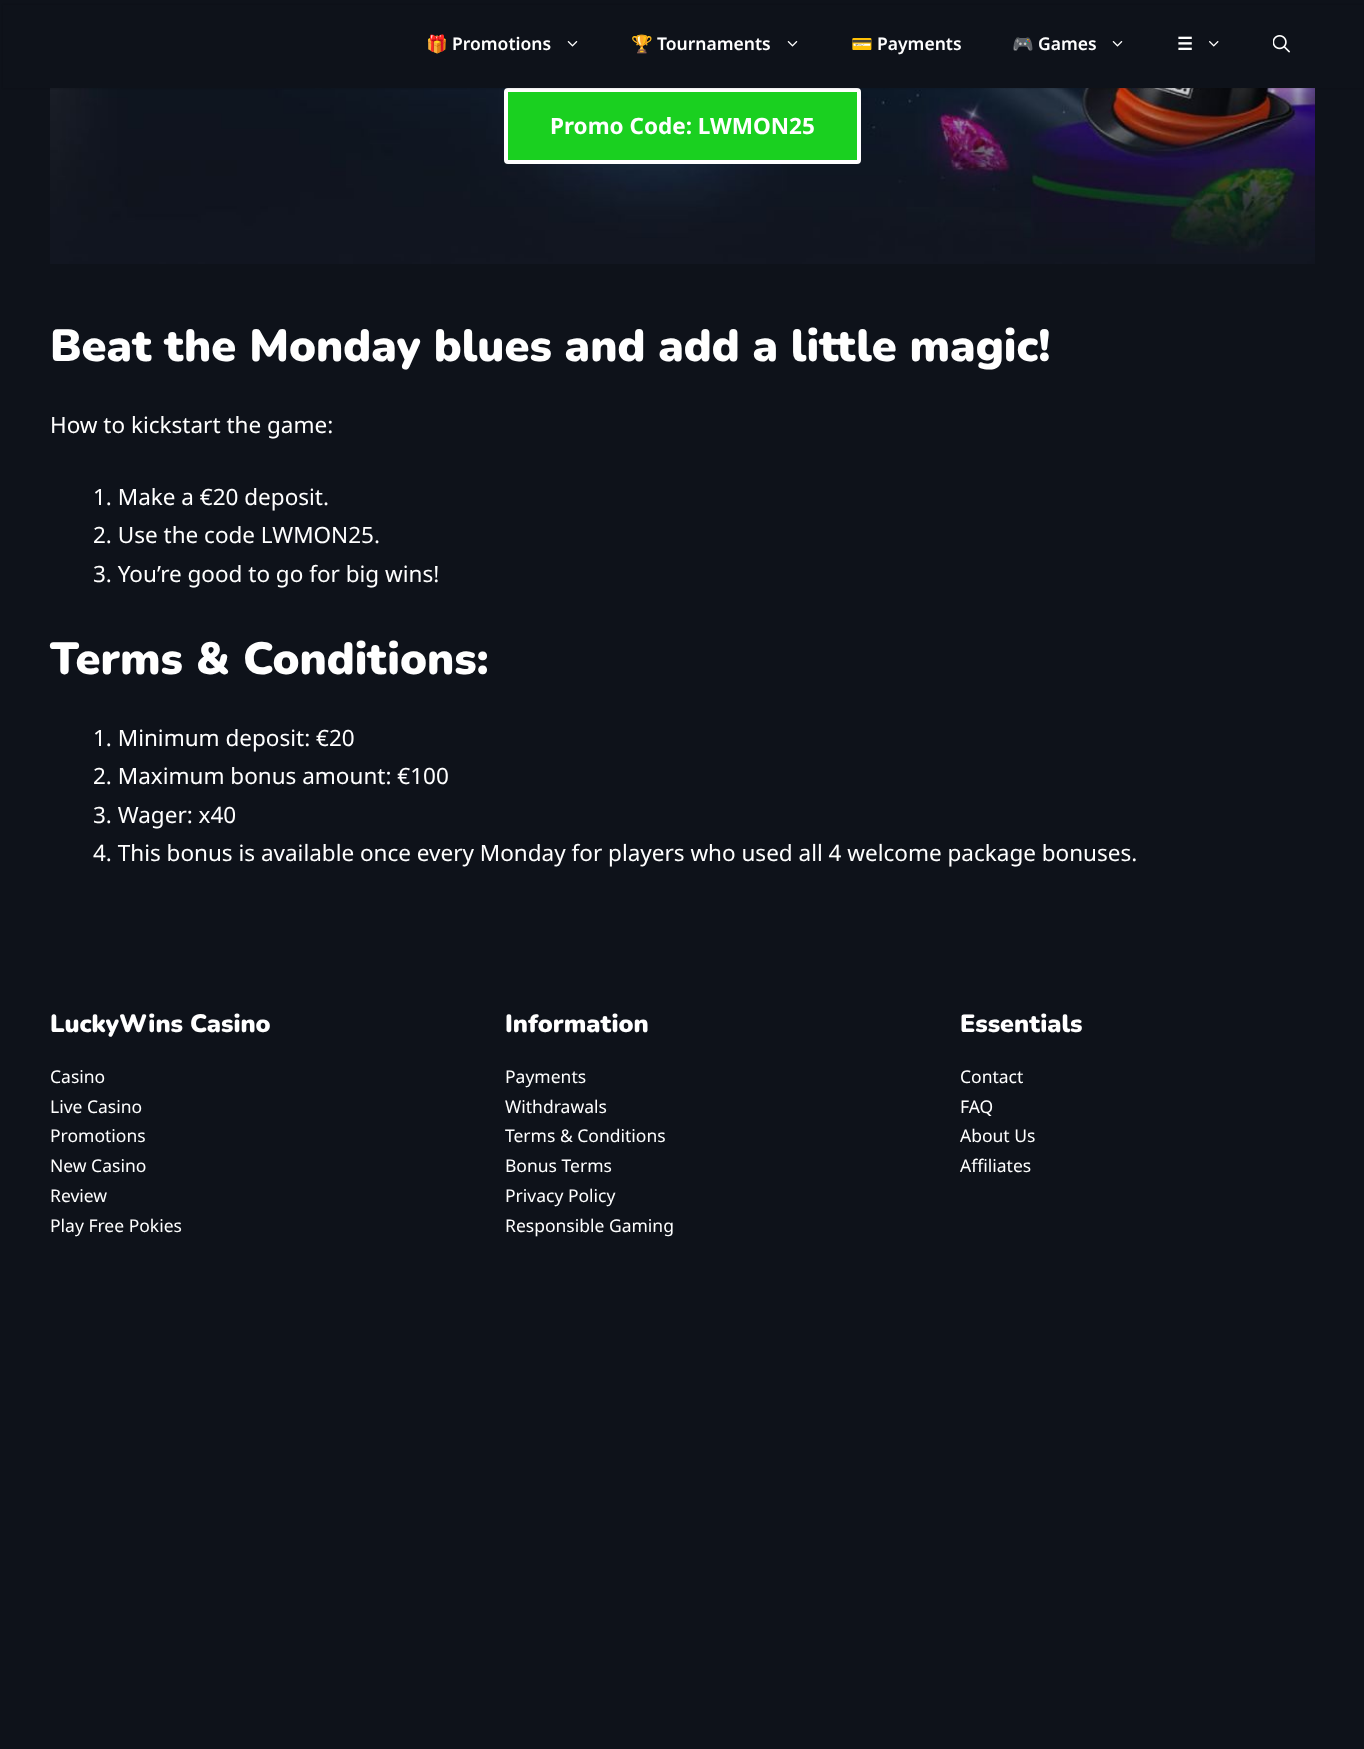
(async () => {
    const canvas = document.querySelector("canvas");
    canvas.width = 1364;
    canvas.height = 1749;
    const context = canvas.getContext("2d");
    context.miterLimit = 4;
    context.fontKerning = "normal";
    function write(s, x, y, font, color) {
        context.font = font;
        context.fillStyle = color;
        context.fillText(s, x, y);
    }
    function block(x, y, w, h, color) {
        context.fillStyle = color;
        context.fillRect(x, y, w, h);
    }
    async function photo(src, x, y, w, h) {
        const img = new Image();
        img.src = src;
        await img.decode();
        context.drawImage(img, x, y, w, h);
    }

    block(0, 0, 1364, 1749, "rgb(14, 18, 26)");
    await photo("media/4.png", 50, 88, 1265, 176);
    context.fillStyle = "rgb(26, 208, 32)";
    context.beginPath();
    context.roundRect(506, 90, 353, 72, 2);
    context.fill();
    context.strokeStyle = "rgb(255, 255, 255)";
    context.lineWidth = 4;
    context.stroke();
    context.fillStyle = "rgba(0, 0, 0, 0.2)";
    context.filter = "blur(1px)";
    context.beginPath();
    context.rect(3, 5, 1360, 83);
    context.fill();
    context.filter = "none";
    block(3, 5, 1360, 83, "rgb(14, 18, 26)");
    write("🎁", 426, 50, "bold 17.5px Noto Color Emoji", "rgb(255, 255, 255)");
    write("Promotions", 452, 50, "600 17.5px Noto Sans", "rgb(255, 255, 255)");
    await photo("media/1.png", 567, 41, 11, 6);
    write("🏆", 631, 50, "bold 17.5px Noto Color Emoji", "rgb(255, 255, 255)");
    write("Tournaments", 657, 50, "600 17.5px Noto Sans", "rgb(255, 255, 255)");
    await photo("media/1.png", 787, 41, 11, 6);
    write("💳", 851, 50, "bold 17.5px Noto Color Emoji", "rgb(255, 255, 255)");
    write("Payments", 877, 50, "600 17.5px Noto Sans", "rgb(255, 255, 255)");
    write("🎮", 1012, 50, "bold 17.5px Noto Color Emoji", "rgb(255, 255, 255)");
    write("Games", 1038, 50, "600 17.5px Noto Sans", "rgb(255, 255, 255)");
    await photo("media/1.png", 1112, 41, 11, 6);
    write("☰", 1177, 50, "bold 17.5px DejaVu Sans", "rgb(255, 255, 255)");
    await photo("media/2.png", 1209, 41, 10, 6);
    await photo("media/3.png", 1273, 35, 17, 18);
    write("Promo Code: LWMON25", 550, 134, "bold 22.5px Noto Sans", "rgb(255, 255, 255)");
    write("Beat the Monday blues and add a little magic!", 50, 361, "900 45px Nunito", "rgb(255, 255, 255)");
    write("How to kickstart the game:", 50, 433, "22.5px Noto Sans", "rgb(255, 255, 255)");
    write("1. Make a €20 deposit.", 93, 505, "22.5px Noto Sans", "rgb(255, 255, 255)");
    write("2. Use the code LWMON25.", 93, 543, "22.5px Noto Sans", "rgb(255, 255, 255)");
    write("3. You’re good to go for big wins!", 93, 582, "22.5px Noto Sans", "rgb(255, 255, 255)");
    write("Terms & Conditions:", 50, 674, "900 45px Nunito", "rgb(255, 255, 255)");
    write("1. Minimum deposit: €20", 93, 746, "22.5px Noto Sans", "rgb(255, 255, 255)");
    write("2. Maximum bonus amount: €100", 93, 784, "22.5px Noto Sans", "rgb(255, 255, 255)");
    write("3. Wager: x40", 93, 823, "22.5px Noto Sans", "rgb(255, 255, 255)");
    write("4. This bonus is available once every Monday for players who used all 4 welcome package bonuses.", 93, 861, "22.5px Noto Sans", "rgb(255, 255, 255)");
    write("LuckyWins Casino", 50, 1032, "900 25px Nunito", "rgb(255, 255, 255)");
    write("Casino", 50, 1083, "17.5px Noto Sans", "rgb(255, 255, 255)");
    write("Live Casino", 50, 1113, "17.5px Noto Sans", "rgb(255, 255, 255)");
    write("Promotions", 50, 1142, "17.5px Noto Sans", "rgb(255, 255, 255)");
    write("New Casino", 50, 1172, "17.5px Noto Sans", "rgb(255, 255, 255)");
    write("Review", 50, 1202, "17.5px Noto Sans", "rgb(255, 255, 255)");
    write("Play Free Pokies", 50, 1232, "17.5px Noto Sans", "rgb(255, 255, 255)");
    write("Information", 505, 1032, "900 25px Nunito", "rgb(255, 255, 255)");
    write("Payments", 505, 1083, "17.5px Noto Sans", "rgb(255, 255, 255)");
    write("Withdrawals", 505, 1113, "17.5px Noto Sans", "rgb(255, 255, 255)");
    write("Terms & Conditions", 505, 1142, "17.5px Noto Sans", "rgb(255, 255, 255)");
    write("Bonus Terms", 505, 1172, "17.5px Noto Sans", "rgb(255, 255, 255)");
    write("Privacy Policy", 505, 1202, "17.5px Noto Sans", "rgb(255, 255, 255)");
    write("Responsible Gaming", 505, 1232, "17.5px Noto Sans", "rgb(255, 255, 255)");
    write("Essentials", 960, 1032, "900 25px Nunito", "rgb(255, 255, 255)");
    write("Contact", 960, 1083, "17.5px Noto Sans", "rgb(255, 255, 255)");
    write("FAQ", 960, 1113, "17.5px Noto Sans", "rgb(255, 255, 255)");
    write("About Us", 960, 1142, "17.5px Noto Sans", "rgb(255, 255, 255)");
    write("Affiliates", 960, 1172, "17.5px Noto Sans", "rgb(255, 255, 255)");
})();
